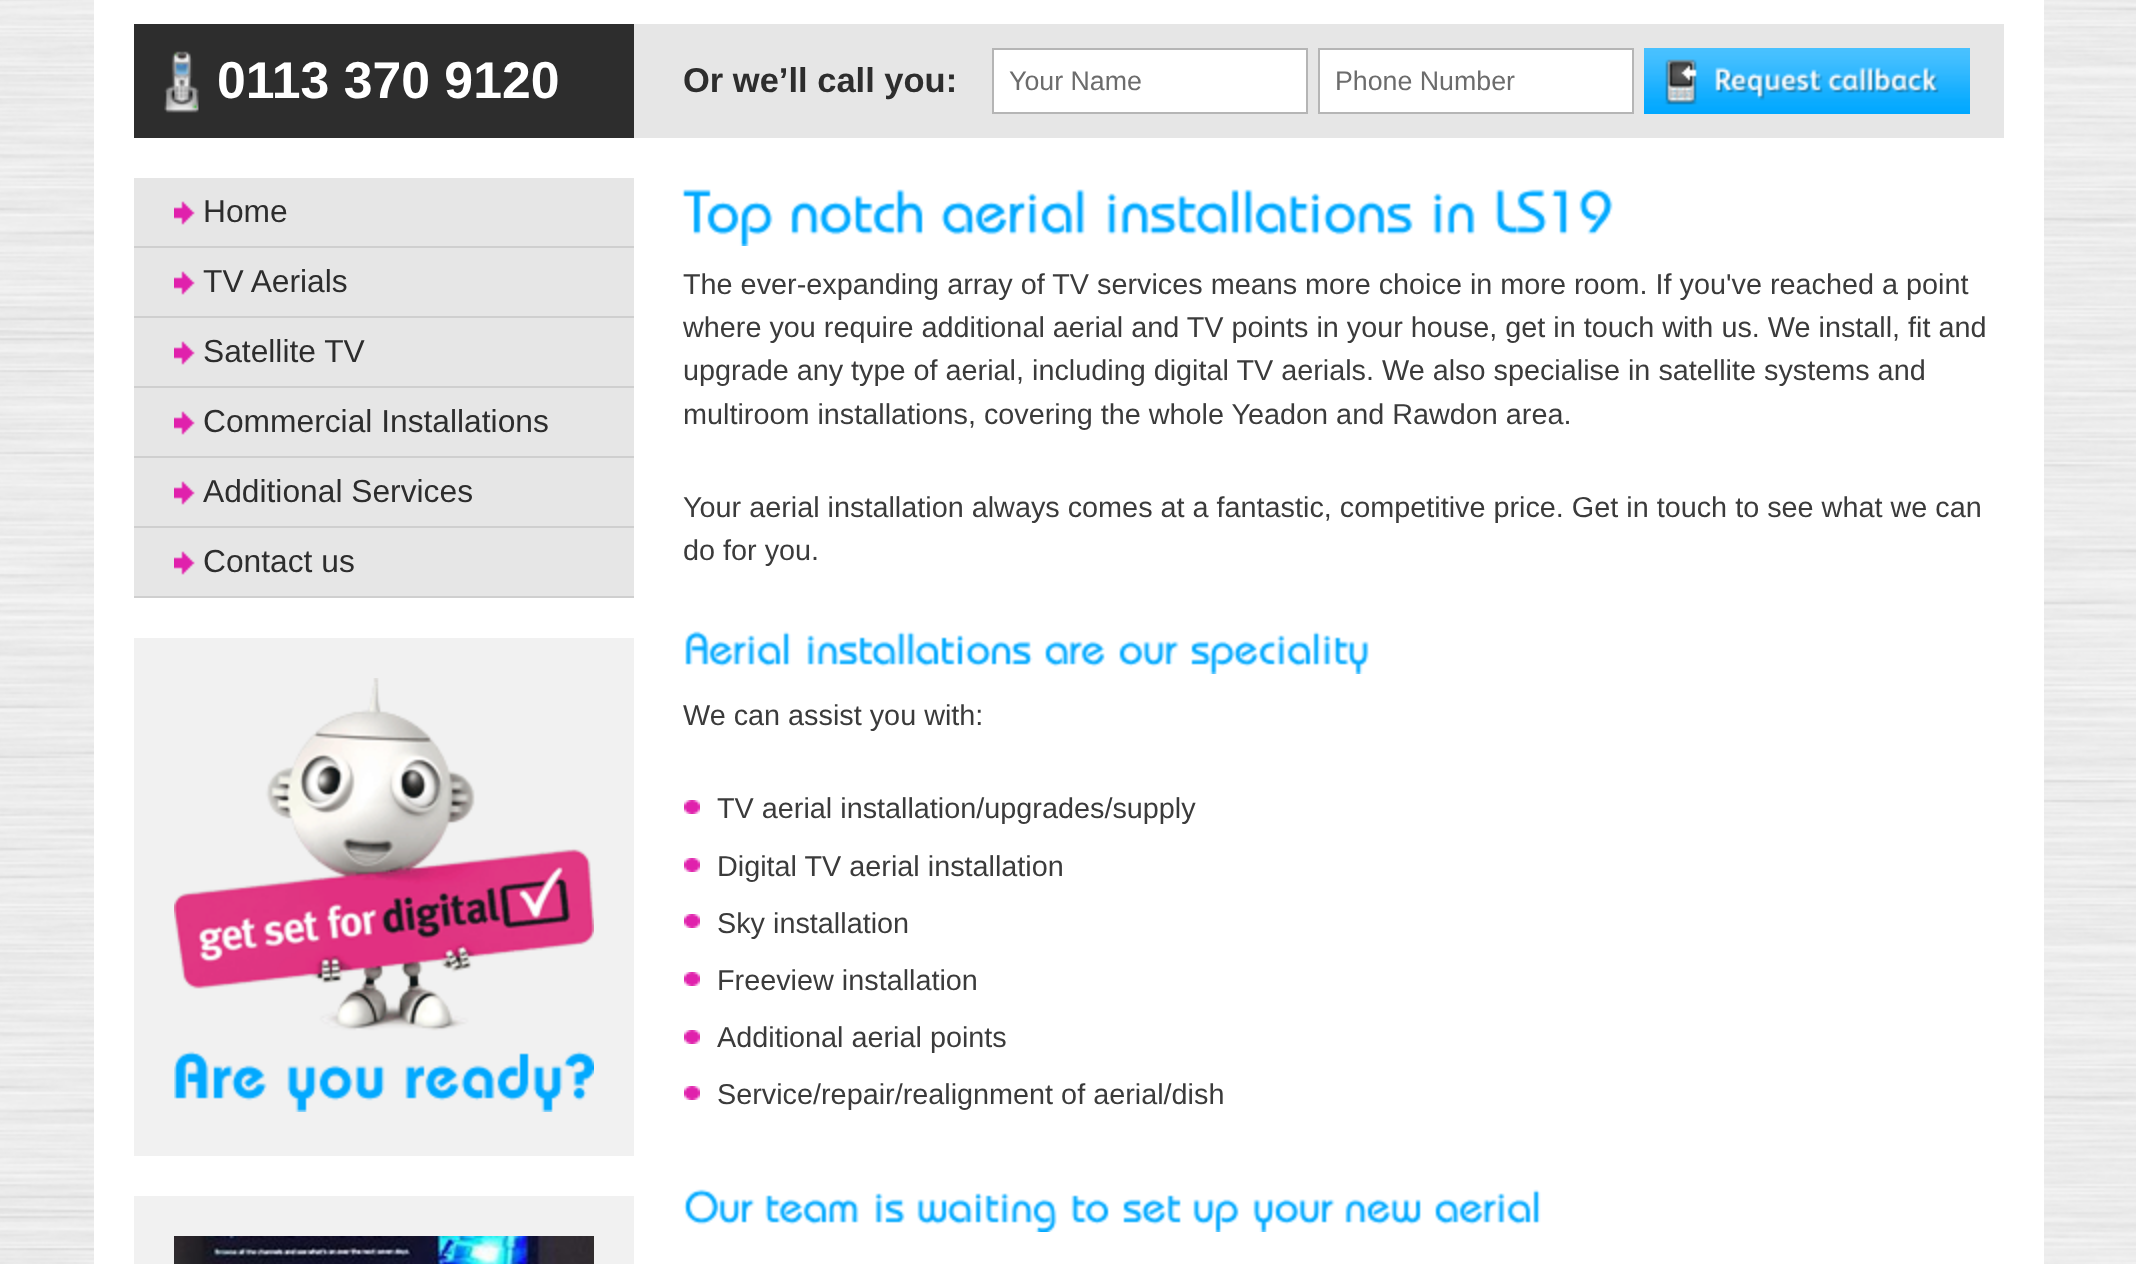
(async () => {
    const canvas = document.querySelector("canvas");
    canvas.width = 2136;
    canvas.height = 1264;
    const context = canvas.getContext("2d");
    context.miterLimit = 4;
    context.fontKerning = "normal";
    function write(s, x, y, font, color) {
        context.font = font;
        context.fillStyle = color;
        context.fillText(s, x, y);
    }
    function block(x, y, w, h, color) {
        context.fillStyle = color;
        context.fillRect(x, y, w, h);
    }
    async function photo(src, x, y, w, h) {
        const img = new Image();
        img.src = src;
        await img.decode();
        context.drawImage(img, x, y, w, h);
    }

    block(0, 0, 2136, 1264, "rgb(255, 255, 255)");
    await photo("media/1.png", 0, 0, 2136, 1264);
    block(94, 0, 1950, 1264, "rgb(255, 255, 255)");
    block(634, 24, 1370, 114, "rgb(230, 230, 230)");
    block(134, 24, 500, 114, "rgb(45, 45, 45)");
    await photo("media/2.png", 164, 51, 36, 62);
    write("0113 370 9120", 217, 98, "bold 51.75px Liberation Sans", "rgb(255, 255, 255)");
    write("Or we’ll call you:", 683, 92, "bold 34.5px Liberation Sans", "rgb(45, 45, 45)");
    context.fillStyle = "rgb(255, 255, 255)";
    context.beginPath();
    context.rect(993, 49, 314, 64);
    context.fill();
    context.strokeStyle = "rgb(181, 181, 181)";
    context.lineWidth = 2;
    context.stroke();
    write("Your Name", 1009, 90, "26.75px Liberation Sans", "rgb(108, 108, 108)");
    context.fillStyle = "rgb(255, 255, 255)";
    context.beginPath();
    context.rect(1319, 49, 314, 64);
    context.fill();
    context.stroke();
    write("Phone Number", 1335, 90, "26.75px Liberation Sans", "rgb(108, 108, 108)");
    await photo("media/3.png", 1644, 48, 326, 66);
    block(134, 178, 500, 418, "rgb(230, 230, 230)");
    await photo("media/4.png", 174, 201, 21, 24);
    block(134, 246, 500, 2, "rgb(207, 207, 207)");
    write("Home", 203, 222, "31.75px Liberation Sans", "rgb(45, 45, 45)");
    await photo("media/4.png", 174, 271, 21, 24);
    block(134, 316, 500, 2, "rgb(207, 207, 207)");
    write("TV Aerials", 203, 292, "31.75px Liberation Sans", "rgb(45, 45, 45)");
    await photo("media/4.png", 174, 341, 21, 24);
    block(134, 386, 500, 2, "rgb(207, 207, 207)");
    write("Satellite TV", 203, 362, "31.75px Liberation Sans", "rgb(45, 45, 45)");
    await photo("media/4.png", 174, 411, 21, 24);
    block(134, 456, 500, 2, "rgb(207, 207, 207)");
    write("Commercial Installations", 203, 432, "31.75px Liberation Sans", "rgb(45, 45, 45)");
    await photo("media/4.png", 174, 481, 21, 24);
    block(134, 526, 500, 2, "rgb(207, 207, 207)");
    write("Additional Services", 203, 502, "31.75px Liberation Sans", "rgb(45, 45, 45)");
    await photo("media/4.png", 174, 551, 21, 24);
    block(134, 596, 500, 2, "rgb(207, 207, 207)");
    write("Contact us", 203, 572, "31.75px Liberation Sans", "rgb(45, 45, 45)");
    block(134, 638, 500, 518, "rgb(241, 241, 241)");
    await photo("media/5.png", 174, 678, 420, 434);
    block(134, 1196, 500, 68, "rgb(241, 241, 241)");
    await photo("media/6.png", 174, 1236, 420, 28);
    await photo("media/7.png", 682, 189, 91, 57);
    await photo("media/8.png", 791, 189, 132, 46);
    await photo("media/9.png", 941, 189, 144, 46);
    await photo("media/10.png", 1107, 189, 306, 46);
    await photo("media/11.png", 1433, 193, 42, 42);
    await photo("media/12.png", 1495, 189, 118, 46);
    write("The ever-expanding array of TV services means more choice in more room. If you've reached a point", 683, 294, "28.8px Liberation Sans", "rgb(59, 59, 59)");
    write("where you require additional aerial and TV points in your house, get in touch with us. We install, fit and", 683, 337, "28.8px Liberation Sans", "rgb(59, 59, 59)");
    write("upgrade any type of aerial, including digital TV aerials. We also specialise in satellite systems and", 683, 380, "28.8px Liberation Sans", "rgb(59, 59, 59)");
    write("multiroom installations, covering the whole Yeadon and Rawdon area.", 683, 424, "28.8px Liberation Sans", "rgb(59, 59, 59)");
    write("Your aerial installation always comes at a fantastic, competitive price. Get in touch to see what we can", 683, 517, "28.8px Liberation Sans", "rgb(59, 59, 59)");
    write("do for you.", 683, 560, "28.8px Liberation Sans", "rgb(59, 59, 59)");
    await photo("media/13.png", 685, 631, 106, 36);
    await photo("media/14.png", 807, 631, 226, 36);
    await photo("media/15.png", 1044, 641, 61, 26);
    await photo("media/16.png", 1119, 641, 60, 26);
    await photo("media/17.png", 1191, 631, 178, 43);
    write("We can assist you with:", 683, 725, "28.8px Liberation Sans", "rgb(59, 59, 59)");
    await photo("media/18.png", 684, 800, 16, 14);
    write("TV aerial installation/upgrades/supply", 717, 818, "28.8px Liberation Sans", "rgb(59, 59, 59)");
    await photo("media/18.png", 684, 858, 16, 14);
    write("Digital TV aerial installation", 717, 876, "28.8px Liberation Sans", "rgb(59, 59, 59)");
    await photo("media/18.png", 684, 914, 16, 14);
    write("Sky installation", 717, 933, "28.8px Liberation Sans", "rgb(59, 59, 59)");
    await photo("media/18.png", 684, 972, 16, 14);
    write("Freeview installation", 717, 990, "28.8px Liberation Sans", "rgb(59, 59, 59)");
    await photo("media/18.png", 684, 1030, 16, 14);
    write("Additional aerial points", 717, 1047, "28.8px Liberation Sans", "rgb(59, 59, 59)");
    await photo("media/18.png", 684, 1086, 16, 14);
    write("Service/repair/realignment of aerial/dish", 717, 1104, "28.8px Liberation Sans", "rgb(59, 59, 59)");
    await photo("media/19.png", 683, 1189, 72, 36);
    await photo("media/20.png", 765, 1195, 94, 30);
    await photo("media/21.png", 875, 1193, 30, 30);
    await photo("media/22.png", 917, 1193, 140, 39);
    await photo("media/23.png", 1071, 1195, 38, 30);
    await photo("media/24.png", 1123, 1195, 58, 30);
    await photo("media/25.png", 1193, 1199, 46, 33);
    await photo("media/26.png", 1253, 1199, 82, 33);
    await photo("media/27.png", 1345, 1199, 76, 26);
    await photo("media/28.png", 1434, 1189, 107, 36);
})();
